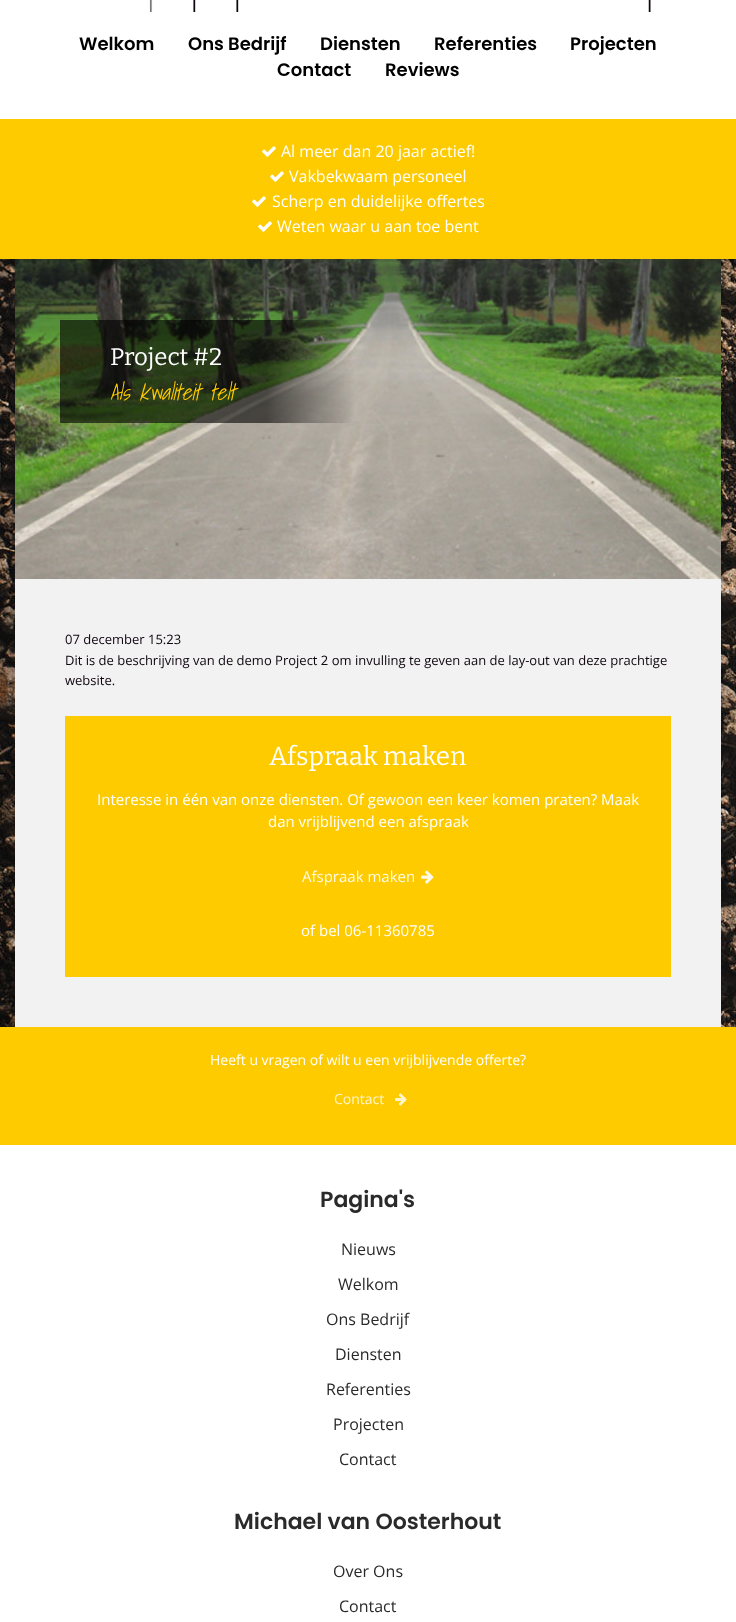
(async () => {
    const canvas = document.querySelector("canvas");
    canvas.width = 736;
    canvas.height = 1622;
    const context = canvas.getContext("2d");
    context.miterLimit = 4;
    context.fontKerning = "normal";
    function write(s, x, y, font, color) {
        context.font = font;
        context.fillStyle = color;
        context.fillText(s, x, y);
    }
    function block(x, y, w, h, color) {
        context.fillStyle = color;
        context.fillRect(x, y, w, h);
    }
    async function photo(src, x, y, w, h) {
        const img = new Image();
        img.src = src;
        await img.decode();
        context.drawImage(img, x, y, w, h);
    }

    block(0, 0, 736, 1622, "rgb(255, 255, 255)");
    await photo("media/1.png", 0, 259, 736, 768);
    await photo("media/2.png", 149, 0, 502, 12);
    write("Welkom", 79, 50, "600 18px Poppins", "rgb(0, 0, 0)");
    write("Ons Bedrijf", 188, 50, "600 18px Poppins", "rgb(0, 0, 0)");
    write("Diensten", 320, 50, "600 18px Poppins", "rgb(0, 0, 0)");
    write("Referenties", 434, 50, "600 18px Poppins", "rgb(0, 0, 0)");
    write("Projecten", 570, 50, "600 18px Poppins", "rgb(0, 0, 0)");
    write("Contact", 277, 76, "600 18px Poppins", "rgb(0, 0, 0)");
    write("Reviews", 385, 76, "600 18px Poppins", "rgb(0, 0, 0)");
    context.fillStyle = "rgba(0, 0, 0, 0.3)";
    context.filter = "blur(1px)";
    context.beginPath();
    context.rect(0, 121, 736, 140);
    context.fill();
    context.filter = "none";
    block(0, 119, 736, 140, "rgb(254, 203, 0)");
    await photo("media/3.png", 262, 146, 14, 11);
    write("Al meer dan 20 jaar actief!", 281, 157, "16px Open Sans", "rgb(255, 255, 255)");
    await photo("media/3.png", 270, 171, 14, 11);
    write("Vakbekwaam personeel", 289, 182, "16px Open Sans", "rgb(255, 255, 255)");
    await photo("media/3.png", 252, 196, 14, 11);
    write("Scherp en duidelijke offertes", 272, 207, "16px Open Sans", "rgb(255, 255, 255)");
    await photo("media/3.png", 258, 221, 14, 11);
    write("Weten waar u aan toe bent", 277, 232, "16px Open Sans", "rgb(255, 255, 255)");
    await photo("media/4.png", 15, 259, 706, 320);
    write("Project #2", 110, 365, "100 24px Bitter", "rgb(255, 255, 255)");
    write("Als kwaliteit telt", 110, 400, "italic 300 22px Shadows Into Light", "rgb(254, 203, 0)");
    block(15, 579, 706, 448, "rgb(242, 242, 242)");
    write("07 december 15:23", 65, 644, "13px Open Sans", "rgb(15, 6, 15)");
    write("Dit is de beschrijving van de demo Project 2 om invulling te geven aan de lay-out van deze prachtige", 65, 665, "13px Open Sans", "rgb(15, 6, 15)");
    write("website.", 65, 685, "13px Open Sans", "rgb(15, 6, 15)");
    block(65, 716, 606, 261, "rgb(254, 203, 0)");
    write("Afspraak maken", 269, 765, "100 26px Bitter", "rgb(255, 255, 255)");
    write("Interesse in één van onze diensten. Of gewoon een keer komen praten? Maak", 97, 805, "15px Open Sans", "rgb(255, 255, 255)");
    write("dan vrijblijvend een afspraak", 268, 827, "15px Open Sans", "rgb(255, 255, 255)");
    write("Afspraak maken", 302, 882, "15px Open Sans", "rgb(255, 250, 230)");
    await photo("media/5.png", 421, 870, 13, 14);
    write("of bel 06-11360785", 301, 936, "15px Open Sans", "rgb(255, 255, 255)");
    block(0, 1027, 736, 118, "rgb(254, 203, 0)");
    write("Heeft u vragen of wilt u een vrijblijvende offerte?", 210, 1065, "14px Open Sans", "rgb(255, 255, 255)");
    write("Contact", 334, 1104, "14px Open Sans", "rgb(255, 245, 204)");
    await photo("media/6.png", 395, 1093, 12, 13);
    write("Pagina's", 320, 1207, "600 22px Poppins", "rgb(42, 42, 42)");
    write("Nieuws", 341, 1255, "16px Open Sans", "rgb(42, 42, 42)");
    write("Welkom", 338, 1290, "16px Open Sans", "rgb(42, 42, 42)");
    write("Ons Bedrijf", 326, 1325, "16px Open Sans", "rgb(42, 42, 42)");
    write("Diensten", 335, 1360, "16px Open Sans", "rgb(42, 42, 42)");
    write("Referenties", 326, 1395, "16px Open Sans", "rgb(42, 42, 42)");
    write("Projecten", 333, 1430, "16px Open Sans", "rgb(42, 42, 42)");
    write("Contact", 339, 1465, "16px Open Sans", "rgb(42, 42, 42)");
    write("Michael van Oosterhout", 234, 1529, "600 22px Poppins", "rgb(42, 42, 42)");
    write("Over Ons", 333, 1577, "16px Open Sans", "rgb(42, 42, 42)");
    write("Contact", 339, 1612, "16px Open Sans", "rgb(42, 42, 42)");
})();
